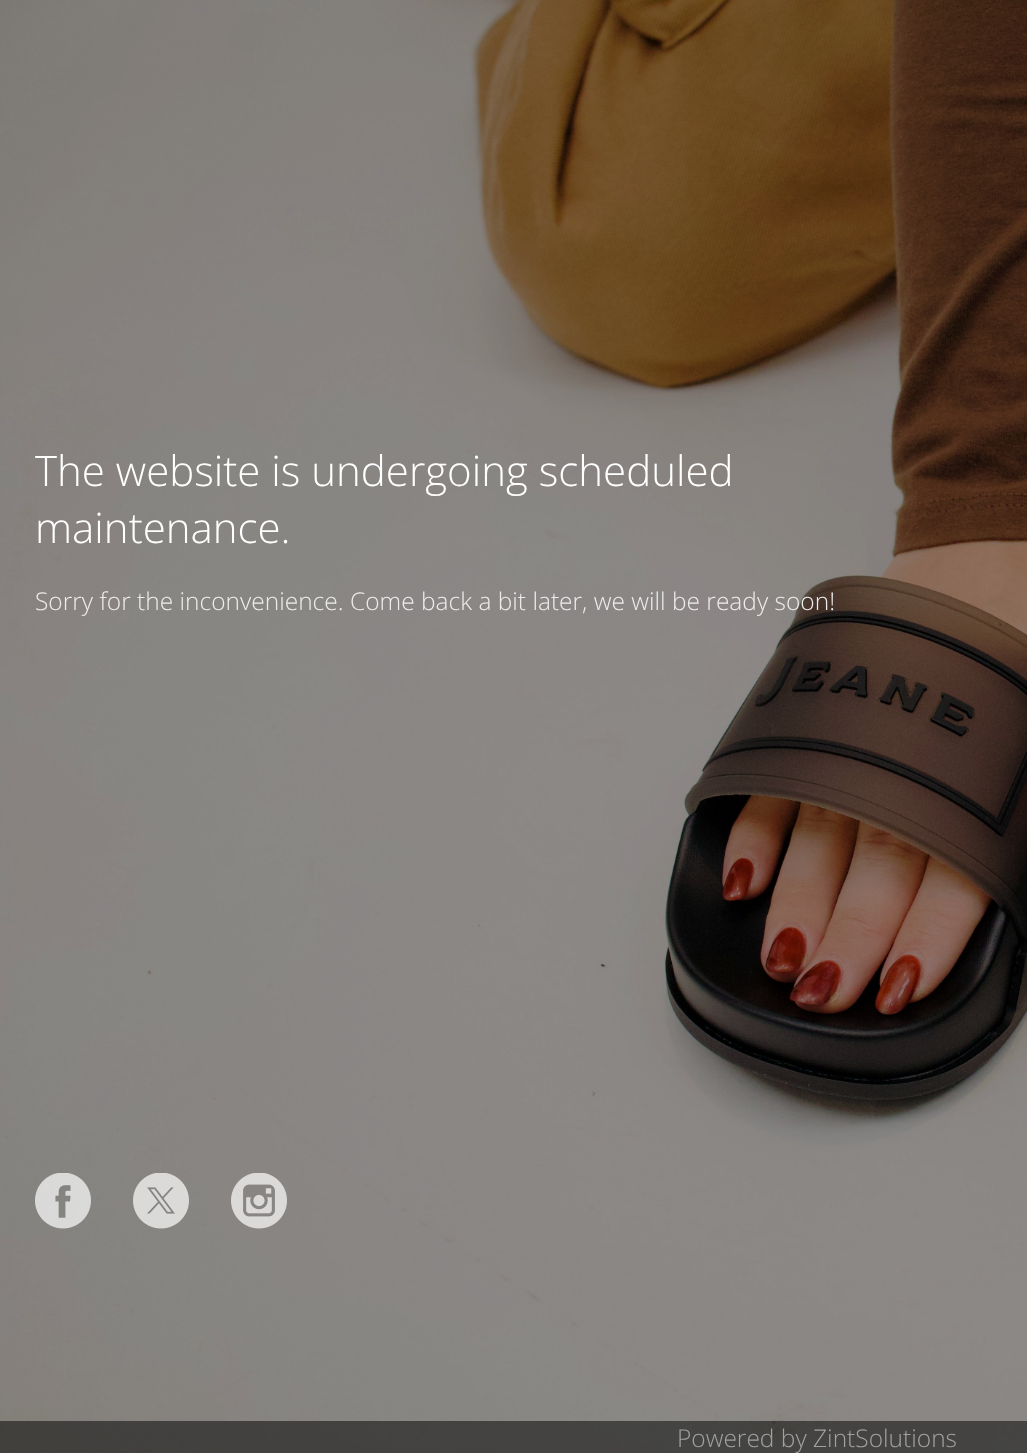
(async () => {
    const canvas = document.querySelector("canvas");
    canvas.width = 1027;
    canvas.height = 1453;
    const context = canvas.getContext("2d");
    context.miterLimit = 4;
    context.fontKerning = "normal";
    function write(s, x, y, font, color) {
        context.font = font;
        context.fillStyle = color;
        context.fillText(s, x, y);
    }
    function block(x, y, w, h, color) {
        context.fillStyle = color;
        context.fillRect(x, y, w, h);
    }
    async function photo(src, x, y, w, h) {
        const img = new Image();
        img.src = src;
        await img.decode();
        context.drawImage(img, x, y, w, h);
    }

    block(0, 0, 1027, 1453, "rgb(255, 255, 255)");
    await photo("media/1.png", 0, 0, 1027, 1453);
    write("The website is undergoing scheduled", 35, 486, "300 42px Open Sans", "rgb(255, 255, 255)");
    write("maintenance.", 35, 543, "300 42px Open Sans", "rgb(255, 255, 255)");
    write("Sorry for the inconvenience. Come back a bit later, we will be ready soon!", 35, 610, "300 24.5px Open Sans", "rgb(237, 236, 236)");
    await photo("media/2.png", 35, 1173, 56, 56);
    await photo("media/3.png", 133, 1173, 56, 56);
    await photo("media/4.png", 231, 1173, 56, 56);
    block(0, 1421, 1027, 32, "rgba(0, 0, 0, 0.5)");
    write("Powered by ZintSolutions", 677, 1447, "300 24.5px Open Sans", "rgb(162, 161, 161)");
})();
